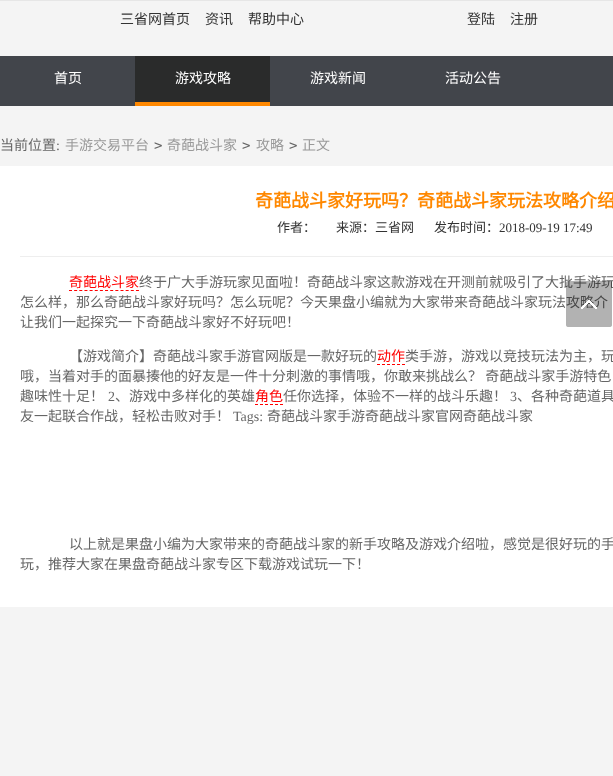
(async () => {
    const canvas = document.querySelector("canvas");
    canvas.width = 613;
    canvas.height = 776;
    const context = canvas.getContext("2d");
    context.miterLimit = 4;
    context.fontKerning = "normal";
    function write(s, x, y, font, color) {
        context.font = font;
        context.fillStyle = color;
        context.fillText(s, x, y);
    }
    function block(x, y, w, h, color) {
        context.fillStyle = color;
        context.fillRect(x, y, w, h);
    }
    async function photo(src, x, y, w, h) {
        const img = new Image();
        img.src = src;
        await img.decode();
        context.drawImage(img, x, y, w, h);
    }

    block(0, 0, 613, 776, "rgb(244, 244, 244)");
    block(0, 0, 613, 1, "rgb(230, 230, 230)");
    write("三省网首页", 120, 24, "14px Noto Sans CJK SC", "rgb(51, 51, 51)");
    write("资讯", 205, 24, "14px Noto Sans CJK SC", "rgb(51, 51, 51)");
    write("帮助中心", 248, 24, "14px Noto Sans CJK SC", "rgb(51, 51, 51)");
    write("登陆", 467, 24, "14px Noto Sans CJK SC", "rgb(51, 51, 51)");
    write("注册", 510, 24, "14px Noto Sans CJK SC", "rgb(51, 51, 51)");
    block(0, 56, 613, 50, "rgb(66, 69, 75)");
    write("首页", 54, 83, "14px Noto Sans CJK SC", "rgb(255, 255, 255)");
    block(135, 56, 135, 46, "rgb(42, 43, 43)");
    block(135, 102, 135, 4, "rgb(255, 136, 0)");
    write("游戏攻略", 175, 83, "14px Noto Sans CJK SC", "rgb(255, 255, 255)");
    write("游戏新闻", 310, 83, "14px Noto Sans CJK SC", "rgb(255, 255, 255)");
    write("活动公告", 445, 83, "14px Noto Sans CJK SC", "rgb(255, 255, 255)");
    write("当前位置", 0, 150, "14px Noto Sans CJK SC", "rgb(102, 102, 102)");
    write(":", 56, 150, "14px Liberation Serif", "rgb(102, 102, 102)");
    write("手游交易平台", 65, 150, "14px Noto Sans CJK SC", "rgb(153, 153, 153)");
    write(">", 154, 150, "14px DejaVu Sans Mono", "rgb(102, 102, 102)");
    write("奇葩战斗家", 167, 150, "14px Noto Sans CJK SC", "rgb(153, 153, 153)");
    write(">", 242, 150, "14px DejaVu Sans Mono", "rgb(102, 102, 102)");
    write("攻略", 256, 150, "14px Noto Sans CJK SC", "rgb(153, 153, 153)");
    write(">", 289, 150, "14px DejaVu Sans Mono", "rgb(102, 102, 102)");
    write("正文", 302, 150, "14px Noto Sans CJK SC", "rgb(153, 153, 153)");
    block(0, 166, 613, 441, "rgb(255, 255, 255)");
    write("奇葩战斗家好玩吗？奇葩战斗家玩法攻略介绍", 255, 207, "bold 18px Noto Sans CJK SC", "rgb(255, 136, 0)");
    block(20, 256, 593, 1, "rgb(238, 238, 238)");
    write("作者：", 277, 232, "13px Noto Sans CJK SC", "rgb(51, 51, 51)");
    write("来源：三省网", 336, 232, "13px Noto Sans CJK SC", "rgb(51, 51, 51)");
    write("发布时间：", 434, 232, "13px Noto Sans CJK SC", "rgb(51, 51, 51)");
    write("2018-09-19 17:49", 499, 232, "13px Liberation Serif", "rgb(51, 51, 51)");
    write("奇葩战斗家", 69, 287, "14px Noto Sans CJK SC", "rgb(255, 0, 0)");
    context.beginPath();
    context.moveTo(69, 290.5);
    context.lineTo(139, 290.5);
    context.strokeStyle = "rgb(255, 0, 0)";
    context.setLineDash([3, 2.15]);
    context.stroke();
    write("终于广大手游玩家见面啦！奇葩战斗家这款游戏在开测前就吸引了大批手游玩", 139, 287, "14px Noto Sans CJK SC", "rgb(102, 102, 102)");
    write("怎么样，那么奇葩战斗家好玩吗？怎么玩呢？今天果盘小编就为大家带来奇葩战斗家玩法攻略介", 20, 307, "14px Noto Sans CJK SC", "rgb(102, 102, 102)");
    write("让我们一起探究一下奇葩战斗家好不好玩吧！", 20, 327, "14px Noto Sans CJK SC", "rgb(102, 102, 102)");
    write("【游戏简介】奇葩战斗家手游官网版是一款好玩的", 69, 361, "14px Noto Sans CJK SC", "rgb(102, 102, 102)");
    write("动作", 377, 361, "14px Noto Sans CJK SC", "rgb(255, 0, 0)");
    context.beginPath();
    context.moveTo(377, 364.5);
    context.lineTo(405, 364.5);
    context.setLineDash([3, 2]);
    context.stroke();
    write("类手游，游戏以竞技玩法为主，玩", 405, 361, "14px Noto Sans CJK SC", "rgb(102, 102, 102)");
    write("哦，当着对手的面暴揍他的好友是一件十分刺激的事情哦，你敢来挑战么？ 奇葩战斗家手游特色", 20, 381, "14px Noto Sans CJK SC", "rgb(102, 102, 102)");
    write("趣味性十足！", 20, 401, "14px Noto Sans CJK SC", "rgb(102, 102, 102)");
    write("2", 108, 401, "14px Liberation Serif", "rgb(102, 102, 102)");
    write("、游戏中多样化的英雄", 115, 401, "14px Noto Sans CJK SC", "rgb(102, 102, 102)");
    write("角色", 255, 401, "14px Noto Sans CJK SC", "rgb(255, 0, 0)");
    context.beginPath();
    context.moveTo(255, 404.5);
    context.lineTo(283, 404.5);
    context.stroke();
    write("任你选择，体验不一样的战斗乐趣！", 283, 401, "14px Noto Sans CJK SC", "rgb(102, 102, 102)");
    write("3", 510, 401, "14px Liberation Serif", "rgb(102, 102, 102)");
    write("、各种奇葩道具", 517, 401, "14px Noto Sans CJK SC", "rgb(102, 102, 102)");
    write("友一起联合作战，轻松击败对手！", 20, 421, "14px Noto Sans CJK SC", "rgb(102, 102, 102)");
    write("Tags:", 233, 421, "14px Liberation Serif", "rgb(102, 102, 102)");
    write("奇葩战斗家手游奇葩战斗家官网奇葩战斗家", 267, 421, "14px Noto Sans CJK SC", "rgb(102, 102, 102)");
    write("以上就是果盘小编为大家带来的奇葩战斗家的新手攻略及游戏介绍啦，感觉是很好玩的手", 69, 549, "14px Noto Sans CJK SC", "rgb(102, 102, 102)");
    write("玩，推荐大家在果盘奇葩战斗家专区下载游戏试玩一下！", 20, 569, "14px Noto Sans CJK SC", "rgb(102, 102, 102)");
    await photo("media/1.png", 566, 281, 46, 46);
})();
